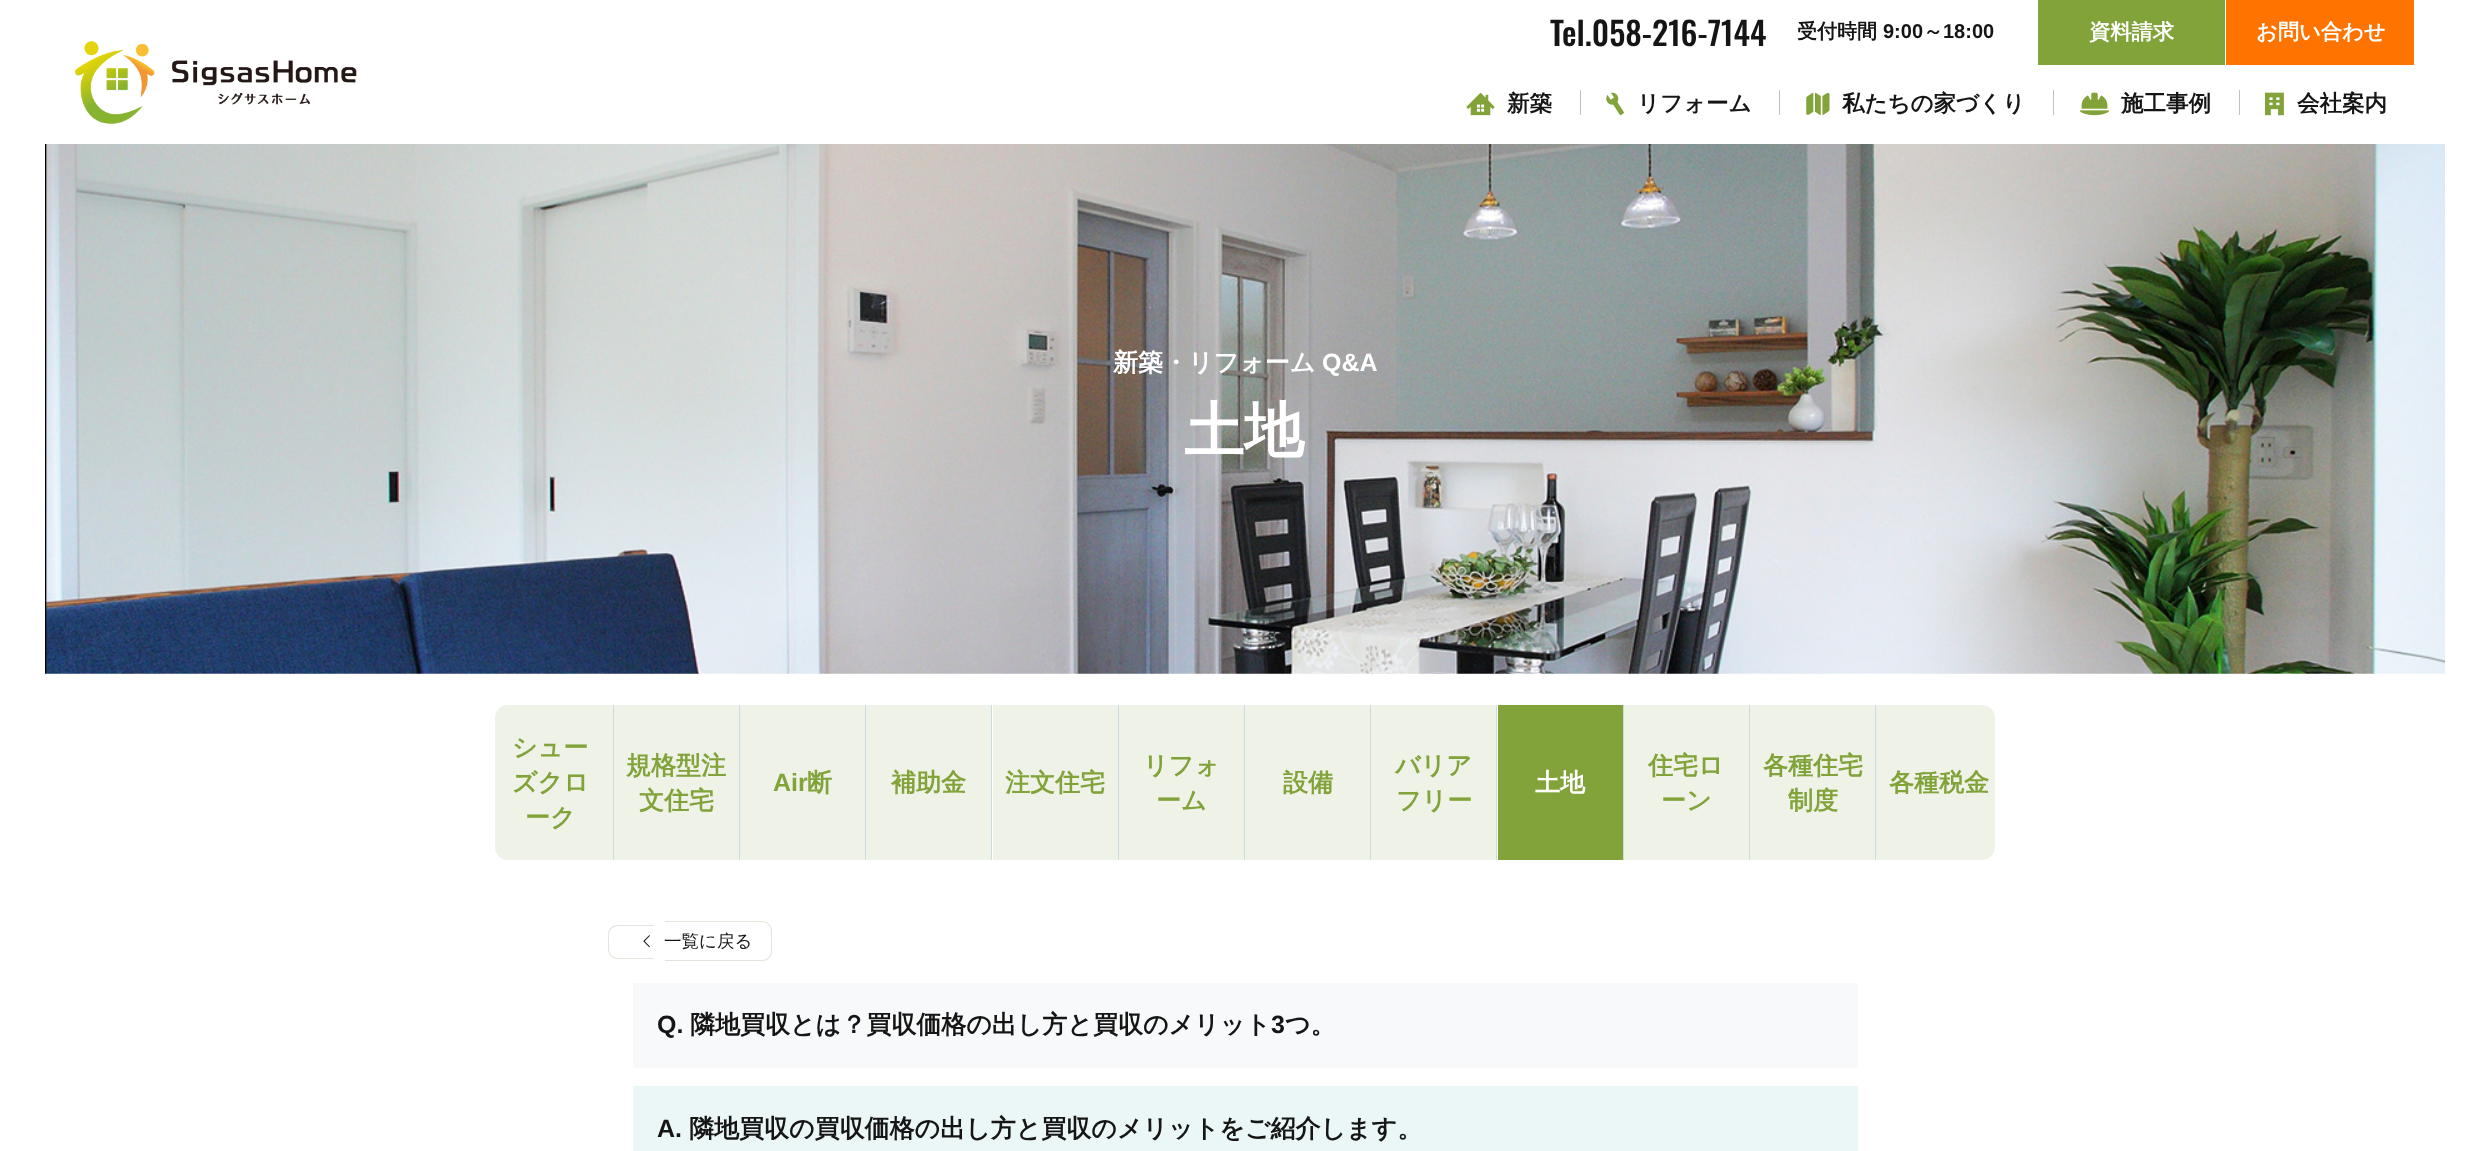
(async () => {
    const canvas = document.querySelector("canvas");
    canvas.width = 2488;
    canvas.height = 1151;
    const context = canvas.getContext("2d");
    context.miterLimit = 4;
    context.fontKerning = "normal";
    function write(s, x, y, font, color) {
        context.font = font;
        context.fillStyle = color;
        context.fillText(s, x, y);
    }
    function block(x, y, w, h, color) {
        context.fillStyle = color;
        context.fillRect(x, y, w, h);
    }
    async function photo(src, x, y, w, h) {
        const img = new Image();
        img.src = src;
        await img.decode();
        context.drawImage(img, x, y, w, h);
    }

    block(0, 0, 2488, 1151, "rgb(255, 255, 255)");
    write("Tel.058-216-7144", 1550, 46, "500 32.5px Oswald", "rgb(21, 21, 21)");
    write("受付時間", 1797, 38, "bold 20px WenQuanYi Zen Hei", "rgb(21, 21, 21)");
    write("9:00", 1883, 38, "bold 20px Liberation Sans", "rgb(21, 21, 21)");
    write("～", 1923, 38, "bold 20px WenQuanYi Zen Hei", "rgb(21, 21, 21)");
    write("18:00", 1943, 38, "bold 20px Liberation Sans", "rgb(21, 21, 21)");
    block(2038, 0, 187, 65, "rgb(129, 163, 57)");
    write("資料請求", 2089, 39, "bold 21.25px WenQuanYi Zen Hei", "rgb(255, 255, 255)");
    block(2226, 0, 188, 65, "rgb(255, 115, 1)");
    write("お問い合わせ", 2256, 39, "bold 21.25px WenQuanYi Zen Hei", "rgb(255, 255, 255)");
    await photo("media/1.png", 75, 41, 282, 83);
    await photo("media/2.png", 1466, 92, 29, 24);
    write("新築", 1507, 111, "bold 22.5px WenQuanYi Zen Hei", "rgb(21, 21, 21)");
    block(1580, 90, 1, 25, "rgb(192, 192, 192)");
    await photo("media/3.png", 1606, 92, 18, 24);
    write("リフォーム", 1637, 111, "bold 22.5px WenQuanYi Zen Hei", "rgb(21, 21, 21)");
    block(1779, 90, 1, 25, "rgb(192, 192, 192)");
    await photo("media/4.png", 1806, 92, 24, 24);
    write("私たちの家づくり", 1842, 111, "bold 22.5px WenQuanYi Zen Hei", "rgb(21, 21, 21)");
    block(2053, 90, 1, 25, "rgb(192, 192, 192)");
    await photo("media/5.png", 2080, 92, 29, 24);
    write("施工事例", 2121, 111, "bold 22.5px WenQuanYi Zen Hei", "rgb(21, 21, 21)");
    block(2239, 90, 1, 25, "rgb(192, 192, 192)");
    await photo("media/6.png", 2265, 92, 19, 24);
    write("会社案内", 2297, 111, "bold 22.5px WenQuanYi Zen Hei", "rgb(21, 21, 21)");
    await photo("media/7.png", 45, 144, 2400, 530);
    write("新築・リフォーム", 1113, 371, "bold 25px WenQuanYi Zen Hei", "rgb(255, 255, 255)");
    write("Q&A", 1322, 371, "bold 25px Liberation Sans", "rgb(255, 255, 255)");
    write("土地", 1184, 451, "bold 60px WenQuanYi Zen Hei", "rgb(255, 255, 255)");
    block(613, 705, 1, 155, "rgb(203, 220, 224)");
    context.fillStyle = "rgb(238, 242, 231)";
    context.beginPath();
    context.roundRect(495, 705, 118, 155, [13, 0, 0, 13]);
    context.fill();
    write("シュー", 512, 756, "bold 25px WenQuanYi Zen Hei", "rgb(129, 163, 57)");
    write("ズクロ", 512, 791, "bold 25px WenQuanYi Zen Hei", "rgb(129, 163, 57)");
    write("ーク", 525, 826, "bold 25px WenQuanYi Zen Hei", "rgb(129, 163, 57)");
    block(739, 705, 1, 155, "rgb(203, 220, 224)");
    block(614, 705, 125, 155, "rgb(238, 242, 231)");
    write("規格型注", 626, 774, "bold 25px WenQuanYi Zen Hei", "rgb(129, 163, 57)");
    write("文住宅", 639, 809, "bold 25px WenQuanYi Zen Hei", "rgb(129, 163, 57)");
    block(865, 705, 1, 155, "rgb(203, 220, 224)");
    block(740, 705, 125, 155, "rgb(238, 242, 231)");
    write("Air", 773, 791, "bold 25px Liberation Sans", "rgb(129, 163, 57)");
    write("断", 807, 791, "bold 25px WenQuanYi Zen Hei", "rgb(129, 163, 57)");
    block(991, 705, 1, 155, "rgb(203, 220, 224)");
    block(866, 705, 125, 155, "rgb(238, 242, 231)");
    write("補助金", 891, 791, "bold 25px WenQuanYi Zen Hei", "rgb(129, 163, 57)");
    block(1118, 705, 1, 155, "rgb(203, 220, 224)");
    block(993, 705, 125, 155, "rgb(238, 242, 231)");
    write("注文住宅", 1005, 791, "bold 25px WenQuanYi Zen Hei", "rgb(129, 163, 57)");
    block(1244, 705, 1, 155, "rgb(203, 220, 224)");
    block(1119, 705, 125, 155, "rgb(238, 242, 231)");
    write("リフォ", 1143, 774, "bold 25px WenQuanYi Zen Hei", "rgb(129, 163, 57)");
    write("ーム", 1156, 809, "bold 25px WenQuanYi Zen Hei", "rgb(129, 163, 57)");
    block(1370, 705, 1, 155, "rgb(203, 220, 224)");
    block(1245, 705, 125, 155, "rgb(238, 242, 231)");
    write("設備", 1283, 791, "bold 25px WenQuanYi Zen Hei", "rgb(129, 163, 57)");
    block(1496, 705, 1, 155, "rgb(203, 220, 224)");
    block(1371, 705, 125, 155, "rgb(238, 242, 231)");
    write("バリア", 1395, 774, "bold 25px WenQuanYi Zen Hei", "rgb(129, 163, 57)");
    write("フリー", 1396, 809, "bold 25px WenQuanYi Zen Hei", "rgb(129, 163, 57)");
    block(1623, 705, 1, 155, "rgb(203, 220, 224)");
    block(1498, 705, 125, 155, "rgb(129, 163, 57)");
    write("土地", 1535, 791, "bold 25px WenQuanYi Zen Hei", "rgb(255, 255, 255)");
    block(1749, 705, 1, 155, "rgb(203, 220, 224)");
    block(1624, 705, 125, 155, "rgb(238, 242, 231)");
    write("住宅ロ", 1648, 774, "bold 25px WenQuanYi Zen Hei", "rgb(129, 163, 57)");
    write("ーン", 1661, 809, "bold 25px WenQuanYi Zen Hei", "rgb(129, 163, 57)");
    block(1875, 705, 1, 155, "rgb(203, 220, 224)");
    block(1750, 705, 125, 155, "rgb(238, 242, 231)");
    write("各種住宅", 1763, 774, "bold 25px WenQuanYi Zen Hei", "rgb(129, 163, 57)");
    write("制度", 1788, 809, "bold 25px WenQuanYi Zen Hei", "rgb(129, 163, 57)");
    context.fillStyle = "rgb(238, 242, 231)";
    context.beginPath();
    context.roundRect(1876, 705, 119, 155, [0, 13, 13, 0]);
    context.fill();
    write("各種税金", 1889, 791, "bold 25px WenQuanYi Zen Hei", "rgb(129, 163, 57)");
    context.fillStyle = "rgb(231, 226, 219)";
    context.beginPath();
    context.moveTo(618, 925);
    context.lineTo(654, 925);
    context.lineTo(654, 959);
    context.lineTo(618, 959);
    context.bezierCurveTo(612, 959, 608, 954, 608, 949);
    context.lineTo(608, 935);
    context.bezierCurveTo(608, 929, 612, 925, 618, 925);
    context.closePath();
    context.moveTo(618, 926);
    context.lineTo(654, 926);
    context.lineTo(654, 958);
    context.lineTo(618, 958);
    context.bezierCurveTo(613, 958, 609, 954, 609, 949);
    context.lineTo(609, 935);
    context.bezierCurveTo(609, 930, 613, 926, 618, 926);
    context.closePath();
    context.fill("evenodd");
    context.beginPath();
    context.moveTo(665, 921);
    context.lineTo(762, 921);
    context.bezierCurveTo(768, 921, 772, 926, 772, 931);
    context.lineTo(772, 951);
    context.bezierCurveTo(772, 957, 768, 961, 762, 961);
    context.lineTo(665, 961);
    context.closePath();
    context.moveTo(665, 922);
    context.lineTo(762, 922);
    context.bezierCurveTo(767, 922, 771, 926, 771, 931);
    context.lineTo(771, 951);
    context.bezierCurveTo(771, 956, 767, 960, 762, 960);
    context.lineTo(665, 960);
    context.closePath();
    context.fill("evenodd");
    await photo("media/8.png", 643, 935, 7, 13);
    write("一覧に戻る", 664, 947, "500 17.5px WenQuanYi Zen Hei", "rgb(21, 21, 21)");
    block(633, 983, 1225, 85, "rgb(248, 249, 250)");
    write("Q.", 657, 1033, "bold 25px Liberation Sans", "rgb(21, 21, 21)");
    write("隣地買収とは？買収価格の出し方と買収のメリット", 690, 1033, "bold 25px WenQuanYi Zen Hei", "rgb(21, 21, 21)");
    write("3", 1271, 1033, "bold 25px Liberation Sans", "rgb(21, 21, 21)");
    write("つ。", 1285, 1033, "bold 25px WenQuanYi Zen Hei", "rgb(21, 21, 21)");
    block(633, 1086, 1225, 65, "rgb(235, 247, 246)");
    write("A.", 657, 1137, "bold 25px Liberation Sans", "rgb(21, 21, 21)");
    write("隣地買収の買収価格の出し方と買収のメリットをご紹介します。", 689, 1137, "bold 25px WenQuanYi Zen Hei", "rgb(21, 21, 21)");
})();
